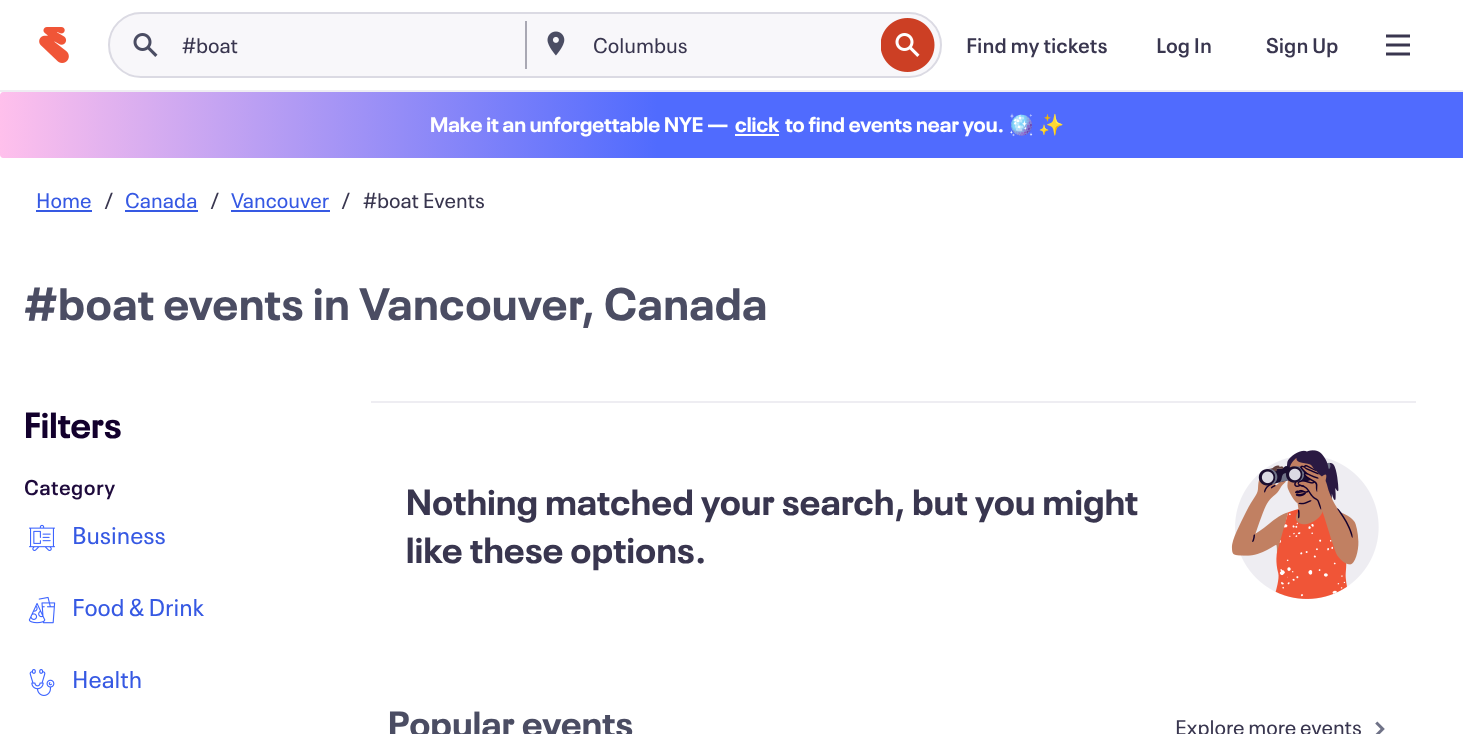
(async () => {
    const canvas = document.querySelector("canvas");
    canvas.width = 1463;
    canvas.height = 734;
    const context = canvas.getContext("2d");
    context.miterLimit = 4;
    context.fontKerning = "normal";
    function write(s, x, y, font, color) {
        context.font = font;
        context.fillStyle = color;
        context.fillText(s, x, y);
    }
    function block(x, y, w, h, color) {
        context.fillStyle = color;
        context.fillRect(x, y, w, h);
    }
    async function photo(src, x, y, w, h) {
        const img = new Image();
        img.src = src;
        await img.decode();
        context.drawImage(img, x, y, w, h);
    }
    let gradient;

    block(0, 0, 1463, 734, "rgb(255, 255, 255)");
    block(0, 90, 1463, 2, "rgb(238, 237, 242)");
    await photo("media/1.png", 39, 27, 30, 36);
    context.fillStyle = "rgb(248, 247, 250)";
    context.beginPath();
    context.roundRect(109, 13, 832, 64, 32);
    context.fill();
    context.strokeStyle = "rgb(219, 218, 227)";
    context.lineWidth = 2;
    context.stroke();
    await photo("media/2.png", 133, 33, 25, 24);
    write("#boat", 182, 53, "21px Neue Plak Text", "rgb(57, 54, 79)");
    block(525, 21, 2, 48, "rgb(169, 168, 179)");
    await photo("media/3.png", 547, 31, 18, 25);
    write("Columbus", 593, 53, "21px Neue Plak Text", "rgb(57, 54, 79)");
    await photo("media/4.png", 881, 18, 54, 54);
    write("Find my tickets", 966, 53, "600 21px Neue Plak Text", "rgb(57, 54, 79)");
    write("Log In", 1156, 53, "600 21px Neue Plak Text", "rgb(57, 54, 79)");
    write("Sign Up", 1266, 53, "600 21px Neue Plak Text", "rgb(57, 54, 79)");
    await photo("media/5.png", 1386, 34, 24, 22);
    gradient = context.createLinearGradient(0, 125, 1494, 124);
    gradient.addColorStop(0, "rgb(255, 192, 236)");
    gradient.addColorStop(0.44, "rgb(80, 107, 254)");
    gradient.addColorStop(1, "rgb(80, 107, 254)");
    context.fillStyle = gradient;
    context.beginPath();
    context.moveTo(3, 92);
    context.lineTo(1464, 92);
    context.lineTo(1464, 158);
    context.lineTo(3, 158);
    context.bezierCurveTo(1.5, 158, 0, 156.5, 0, 155);
    context.lineTo(0, 95);
    context.bezierCurveTo(0, 93.5, 1.5, 92, 3, 92);
    context.closePath();
    context.fill();
    write("Make it an unforgettable NYE —", 430, 132, "bold 21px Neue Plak", "rgb(255, 255, 255)");
    write("click", 735, 132, "bold 21px Neue Plak", "rgb(255, 255, 255)");
    block(735, 134, 44, 2, "rgb(255, 255, 255)");
    write("to find events near you.", 785, 132, "bold 21px Neue Plak", "rgb(255, 255, 255)");
    write("🪩", 1008, 132, "bold 21px Noto Color Emoji", "rgb(255, 255, 255)");
    write("✨", 1038, 132, "bold 21px Noto Color Emoji", "rgb(255, 255, 255)");
    write("Home", 36, 208, "21px Neue Plak Text", "rgb(54, 89, 227)");
    block(36, 210, 56, 2, "rgb(54, 89, 227)");
    write("/", 104, 208, "21px Neue Plak Text", "rgb(57, 54, 79)");
    write("Canada", 125, 208, "21px Neue Plak Text", "rgb(54, 89, 227)");
    block(125, 210, 73, 2, "rgb(54, 89, 227)");
    write("/", 210, 208, "21px Neue Plak Text", "rgb(57, 54, 79)");
    write("Vancouver", 231, 208, "21px Neue Plak Text", "rgb(54, 89, 227)");
    block(231, 210, 99, 2, "rgb(54, 89, 227)");
    write("/", 341, 208, "21px Neue Plak Text", "rgb(57, 54, 79)");
    write("#boat Events", 363, 208, "21px Neue Plak Text", "rgb(57, 54, 79)");
    context.letterSpacing = "0.75px";
    write("#boat events in Vancouver, Canada", 24, 320, "bold 45px Neue Plak", "rgb(75, 77, 99)");
    context.letterSpacing = "0px";
    write("Filters", 24, 438, "bold 36px Neue Plak", "rgb(19, 0, 45)");
    context.letterSpacing = "0.4px";
    write("Category", 24, 495, "600 21px Neue Plak Text", "rgb(30, 10, 60)");
    await photo("media/6.png", 29, 524, 26, 27);
    context.letterSpacing = "0px";
    write("Business", 72, 544, "24px Neue Plak Text", "rgb(54, 89, 227)");
    await photo("media/7.png", 28, 596, 28, 28);
    write("Food & Drink", 72, 616, "24px Neue Plak Text", "rgb(54, 89, 227)");
    await photo("media/8.png", 29, 669, 26, 27);
    write("Health", 72, 688, "24px Neue Plak Text", "rgb(54, 89, 227)");
    block(371, 401, 1045, 2, "rgb(238, 237, 242)");
    context.letterSpacing = "0.4px";
    write("Nothing matched your search, but you might", 406, 515, "bold 36px Neue Plak", "rgb(57, 54, 79)");
    write("like these options.", 406, 563, "bold 36px Neue Plak", "rgb(57, 54, 79)");
    await photo("media/9.png", 1231, 450, 148, 149);
    write("Popular events", 388, 737, "bold 36px Neue Plak", "rgb(75, 77, 99)");
    context.letterSpacing = "0px";
    write("Explore more events", 1175, 735, "21px Neue Plak Text", "rgb(57, 54, 79)");
    await photo("media/10.png", 1375, 721, 10, 13);
})();
